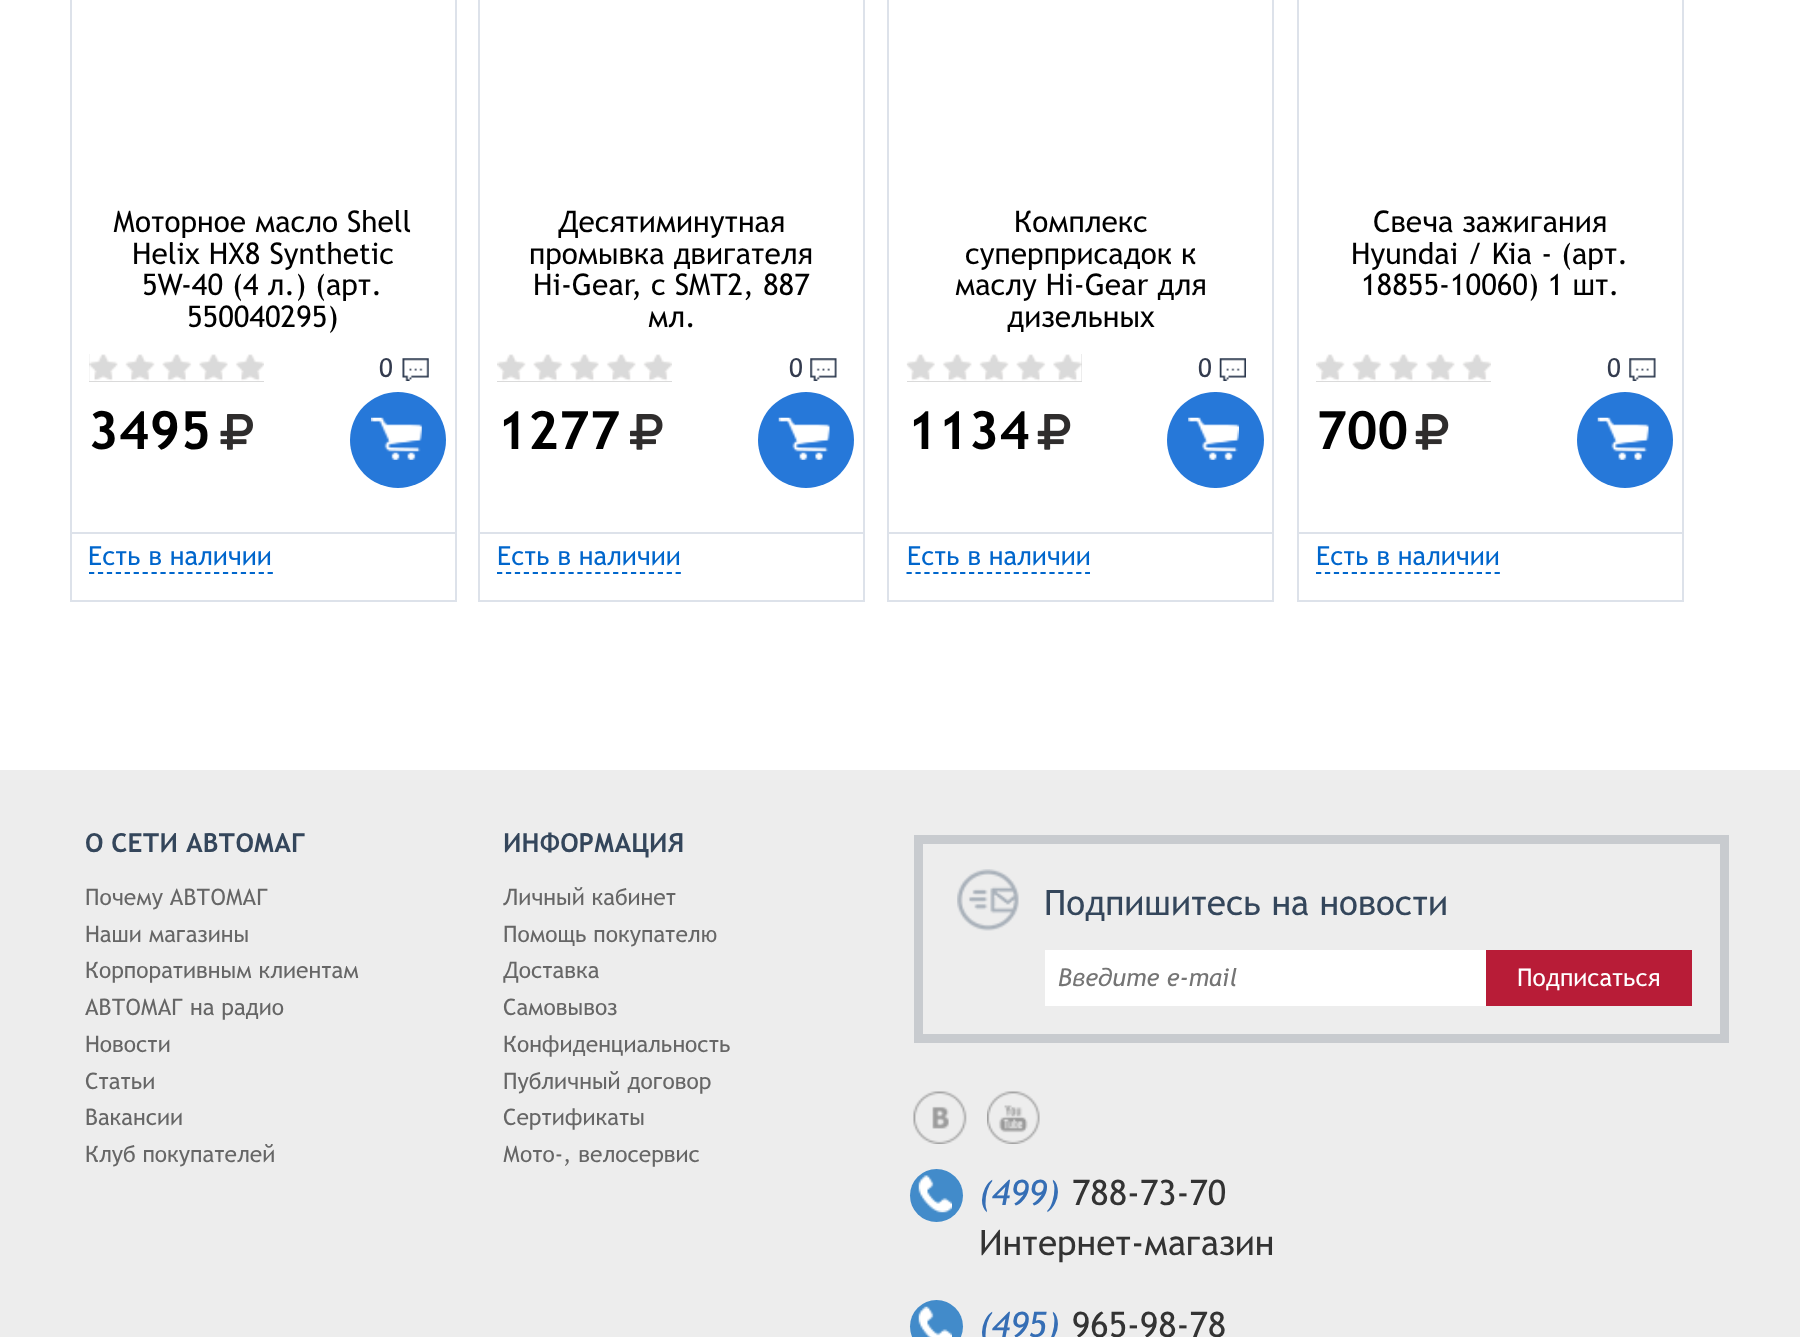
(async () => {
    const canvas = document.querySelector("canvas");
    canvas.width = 1800;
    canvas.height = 1337;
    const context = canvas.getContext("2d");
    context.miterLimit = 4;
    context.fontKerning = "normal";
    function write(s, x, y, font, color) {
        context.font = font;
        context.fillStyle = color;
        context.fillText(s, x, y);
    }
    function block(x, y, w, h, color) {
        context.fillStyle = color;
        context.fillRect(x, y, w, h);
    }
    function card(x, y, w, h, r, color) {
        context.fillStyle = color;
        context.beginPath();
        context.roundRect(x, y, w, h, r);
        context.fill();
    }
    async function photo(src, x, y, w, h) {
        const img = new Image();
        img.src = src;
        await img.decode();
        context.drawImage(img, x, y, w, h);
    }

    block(0, 0, 1800, 1337, "rgb(255, 255, 255)");
    context.strokeStyle = "rgb(221, 226, 234)";
    context.lineWidth = 2;
    context.strokeRect(71, -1, 385, 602);
    block(72, 532, 383, 2, "rgb(221, 226, 234)");
    write("Моторное масло Shell", 113, 232, "29.75px Trebuchet MS", "rgb(0, 0, 0)");
    write("Helix HX8 Synthetic", 132, 264, "29.75px Trebuchet MS", "rgb(0, 0, 0)");
    write("5W-40 (4 л.) (арт.", 142, 295, "29.75px Trebuchet MS", "rgb(0, 0, 0)");
    write("550040295)", 187, 327, "29.75px Trebuchet MS", "rgb(0, 0, 0)");
    block(89, 354, 175, 28, "rgb(218, 218, 218)");
    await photo("media/1.png", 89, 354, 175, 27);
    await photo("media/2.png", 402, 358, 27, 23);
    write("0", 379, 377, "26.25px Trebuchet MS", "rgb(51, 59, 78)");
    write("3495", 88, 449, "bold 52.5px Trebuchet MS", "rgb(0, 0, 0)");
    await photo("media/3.png", 220, 414, 33, 36);
    context.fillStyle = "rgb(38, 120, 217)";
    context.beginPath();
    context.arc(398, 440, 48, 0, Math.PI * 2);
    context.fill();
    await photo("media/4.png", 371, 417, 51, 43);
    write("Есть в наличии", 88, 565, "26.25px Trebuchet MS", "rgb(0, 102, 204)");
    context.beginPath();
    context.moveTo(89, 573);
    context.lineTo(273, 573);
    context.strokeStyle = "rgb(0, 102, 204)";
    context.lineWidth = 1.8;
    context.setLineDash([5.25, 3.68]);
    context.stroke();
    context.strokeStyle = "rgb(221, 226, 234)";
    context.lineWidth = 2;
    context.setLineDash([]);
    context.strokeRect(479, -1, 385, 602);
    block(480, 532, 383, 2, "rgb(221, 226, 234)");
    write("Десятиминутная", 558, 232, "29.75px Trebuchet MS", "rgb(0, 0, 0)");
    write("промывка двигателя", 529, 264, "29.75px Trebuchet MS", "rgb(0, 0, 0)");
    write("Hi-Gear, с SMT2, 887", 533, 295, "29.75px Trebuchet MS", "rgb(0, 0, 0)");
    write("мл.", 648, 327, "29.75px Trebuchet MS", "rgb(0, 0, 0)");
    block(497, 354, 175, 28, "rgb(218, 218, 218)");
    await photo("media/5.png", 497, 354, 175, 27);
    await photo("media/6.png", 810, 358, 27, 23);
    write("0", 789, 377, "26.25px Trebuchet MS", "rgb(51, 59, 78)");
    write("1277", 497, 449, "bold 52.5px Trebuchet MS", "rgb(0, 0, 0)");
    await photo("media/7.png", 630, 414, 33, 36);
    context.fillStyle = "rgb(38, 120, 217)";
    context.beginPath();
    context.arc(806, 440, 48, 0, Math.PI * 2);
    context.fill();
    await photo("media/8.png", 778, 417, 52, 43);
    write("Есть в наличии", 497, 565, "26.25px Trebuchet MS", "rgb(0, 102, 204)");
    context.beginPath();
    context.moveTo(497, 573);
    context.lineTo(681, 573);
    context.strokeStyle = "rgb(0, 102, 204)";
    context.lineWidth = 1.8;
    context.setLineDash([5.25, 3.68]);
    context.stroke();
    context.strokeStyle = "rgb(221, 226, 234)";
    context.lineWidth = 2;
    context.setLineDash([]);
    context.strokeRect(888, -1, 385, 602);
    block(889, 532, 383, 2, "rgb(221, 226, 234)");
    write("Комплекс", 1014, 232, "29.75px Trebuchet MS", "rgb(0, 0, 0)");
    write("суперприсадок к", 965, 264, "29.75px Trebuchet MS", "rgb(0, 0, 0)");
    write("маслу Hi-Gear для", 955, 295, "29.75px Trebuchet MS", "rgb(0, 0, 0)");
    write("дизельных", 1007, 327, "29.75px Trebuchet MS", "rgb(0, 0, 0)");
    block(907, 354, 175, 28, "rgb(218, 218, 218)");
    await photo("media/9.png", 906, 354, 176, 27);
    await photo("media/10.png", 1219, 358, 27, 23);
    write("0", 1198, 377, "26.25px Trebuchet MS", "rgb(51, 59, 78)");
    write("1134", 907, 449, "bold 52.5px Trebuchet MS", "rgb(0, 0, 0)");
    await photo("media/11.png", 1037, 414, 34, 36);
    card(1167, 392, 97, 96, 48, "rgb(38, 120, 217)");
    await photo("media/12.png", 1188, 417, 51, 43);
    write("Есть в наличии", 907, 565, "26.25px Trebuchet MS", "rgb(0, 102, 204)");
    context.beginPath();
    context.moveTo(906.5, 573);
    context.lineTo(1090, 573);
    context.strokeStyle = "rgb(0, 102, 204)";
    context.lineWidth = 1.8;
    context.setLineDash([5.25, 3.68]);
    context.stroke();
    context.strokeStyle = "rgb(221, 226, 234)";
    context.lineWidth = 2;
    context.setLineDash([]);
    context.strokeRect(1298, -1, 385, 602);
    block(1299, 532, 383, 2, "rgb(221, 226, 234)");
    write("Свеча зажигания", 1373, 232, "29.75px Trebuchet MS", "rgb(0, 0, 0)");
    write("Hyundai / Kia - (арт.", 1351, 264, "29.75px Trebuchet MS", "rgb(0, 0, 0)");
    write("18855-10060) 1 шт.", 1361, 295, "29.75px Trebuchet MS", "rgb(0, 0, 0)");
    block(1316, 354, 175, 28, "rgb(218, 218, 218)");
    await photo("media/5.png", 1316, 354, 175, 27);
    await photo("media/13.png", 1629, 358, 27, 23);
    write("0", 1607, 377, "26.25px Trebuchet MS", "rgb(51, 59, 78)");
    write("700", 1316, 449, "bold 52.5px Trebuchet MS", "rgb(0, 0, 0)");
    await photo("media/11.png", 1415, 414, 34, 36);
    context.fillStyle = "rgb(38, 120, 217)";
    context.beginPath();
    context.arc(1625, 440, 48, 0, Math.PI * 2);
    context.fill();
    await photo("media/14.png", 1597, 417, 52, 43);
    write("Есть в наличии", 1316, 565, "26.25px Trebuchet MS", "rgb(0, 102, 204)");
    context.beginPath();
    context.moveTo(1316, 573);
    context.lineTo(1500, 573);
    context.strokeStyle = "rgb(0, 102, 204)";
    context.lineWidth = 1.8;
    context.setLineDash([5.25, 3.68]);
    context.stroke();
    block(0, 770, 1800, 567, "rgb(237, 237, 237)");
    write("О СЕТИ АВТОМАГ", 85, 852, "bold 26.25px Trebuchet MS", "rgb(52, 70, 91)");
    write("Почему АВТОМАГ", 85, 905, "22.75px Trebuchet MS", "rgb(102, 102, 102)");
    write("Наши магазины", 85, 942, "22.75px Trebuchet MS", "rgb(102, 102, 102)");
    write("Корпоративным клиентам", 85, 978, "22.75px Trebuchet MS", "rgb(102, 102, 102)");
    write("АВТОМАГ на радио", 85, 1015, "22.75px Trebuchet MS", "rgb(102, 102, 102)");
    write("Новости", 85, 1052, "22.75px Trebuchet MS", "rgb(102, 102, 102)");
    write("Статьи", 85, 1089, "22.75px Trebuchet MS", "rgb(102, 102, 102)");
    write("Вакансии", 85, 1125, "22.75px Trebuchet MS", "rgb(102, 102, 102)");
    write("Клуб покупателей", 85, 1162, "22.75px Trebuchet MS", "rgb(102, 102, 102)");
    write("ИНФОРМАЦИЯ", 503, 852, "bold 26.25px Trebuchet MS", "rgb(52, 70, 91)");
    write("Личный кабинет", 503, 905, "22.75px Trebuchet MS", "rgb(102, 102, 102)");
    write("Помощь покупателю", 503, 942, "22.75px Trebuchet MS", "rgb(102, 102, 102)");
    write("Доставка", 503, 978, "22.75px Trebuchet MS", "rgb(102, 102, 102)");
    write("Самовывоз", 503, 1015, "22.75px Trebuchet MS", "rgb(102, 102, 102)");
    write("Конфиденциальность", 503, 1052, "22.75px Trebuchet MS", "rgb(102, 102, 102)");
    write("Публичный договор", 503, 1089, "22.75px Trebuchet MS", "rgb(102, 102, 102)");
    write("Сертификаты", 503, 1125, "22.75px Trebuchet MS", "rgb(102, 102, 102)");
    write("Мото-, велосервис", 503, 1162, "22.75px Trebuchet MS", "rgb(102, 102, 102)");
    await photo("media/15.png", 957, 869, 62, 62);
    context.strokeStyle = "rgb(200, 203, 207)";
    context.lineWidth = 9;
    context.setLineDash([]);
    context.strokeRect(918.5, 839.5, 806, 199);
    write("Подпишитеcь на новости", 1044, 915, "35px Trebuchet MS", "rgb(52, 70, 91)");
    block(1045, 950, 441, 56, "rgb(255, 255, 255)");
    write("Введите e-mail", 1058, 986, "italic 24.5px Trebuchet MS", "rgb(117, 117, 117)");
    block(1486, 950, 206, 56, "rgb(184, 28, 55)");
    write("Подписаться", 1517, 986, "24.5px Trebuchet MS", "rgb(255, 255, 255)");
    await photo("media/16.png", 913, 1091, 54, 53);
    await photo("media/17.png", 987, 1091, 53, 53);
    context.fillStyle = "rgb(66, 139, 202)";
    context.beginPath();
    context.arc(936.5, 1195.5, 26.5, 0, Math.PI * 2);
    context.fill();
    await photo("media/18.png", 918, 1175, 34, 38);
    write("(499)", 979, 1205, "italic 35px Trebuchet MS", "rgb(53, 110, 181)");
    write("788-73-70", 1072, 1205, "35px Trebuchet MS", "rgb(51, 51, 51)");
    write("Интернет-магазин", 979, 1255, "35px Trebuchet MS", "rgb(51, 51, 51)");
    context.fillStyle = "rgb(66, 139, 202)";
    context.beginPath();
    context.arc(936.5, 1326.5, 26.5, 0, Math.PI * 2);
    context.fill();
    await photo("media/19.png", 918, 1306, 34, 31);
    write("(495)", 979, 1337, "italic 35px Trebuchet MS", "rgb(53, 110, 181)");
    write("965-98-78", 1072, 1337, "35px Trebuchet MS", "rgb(51, 51, 51)");
})();
